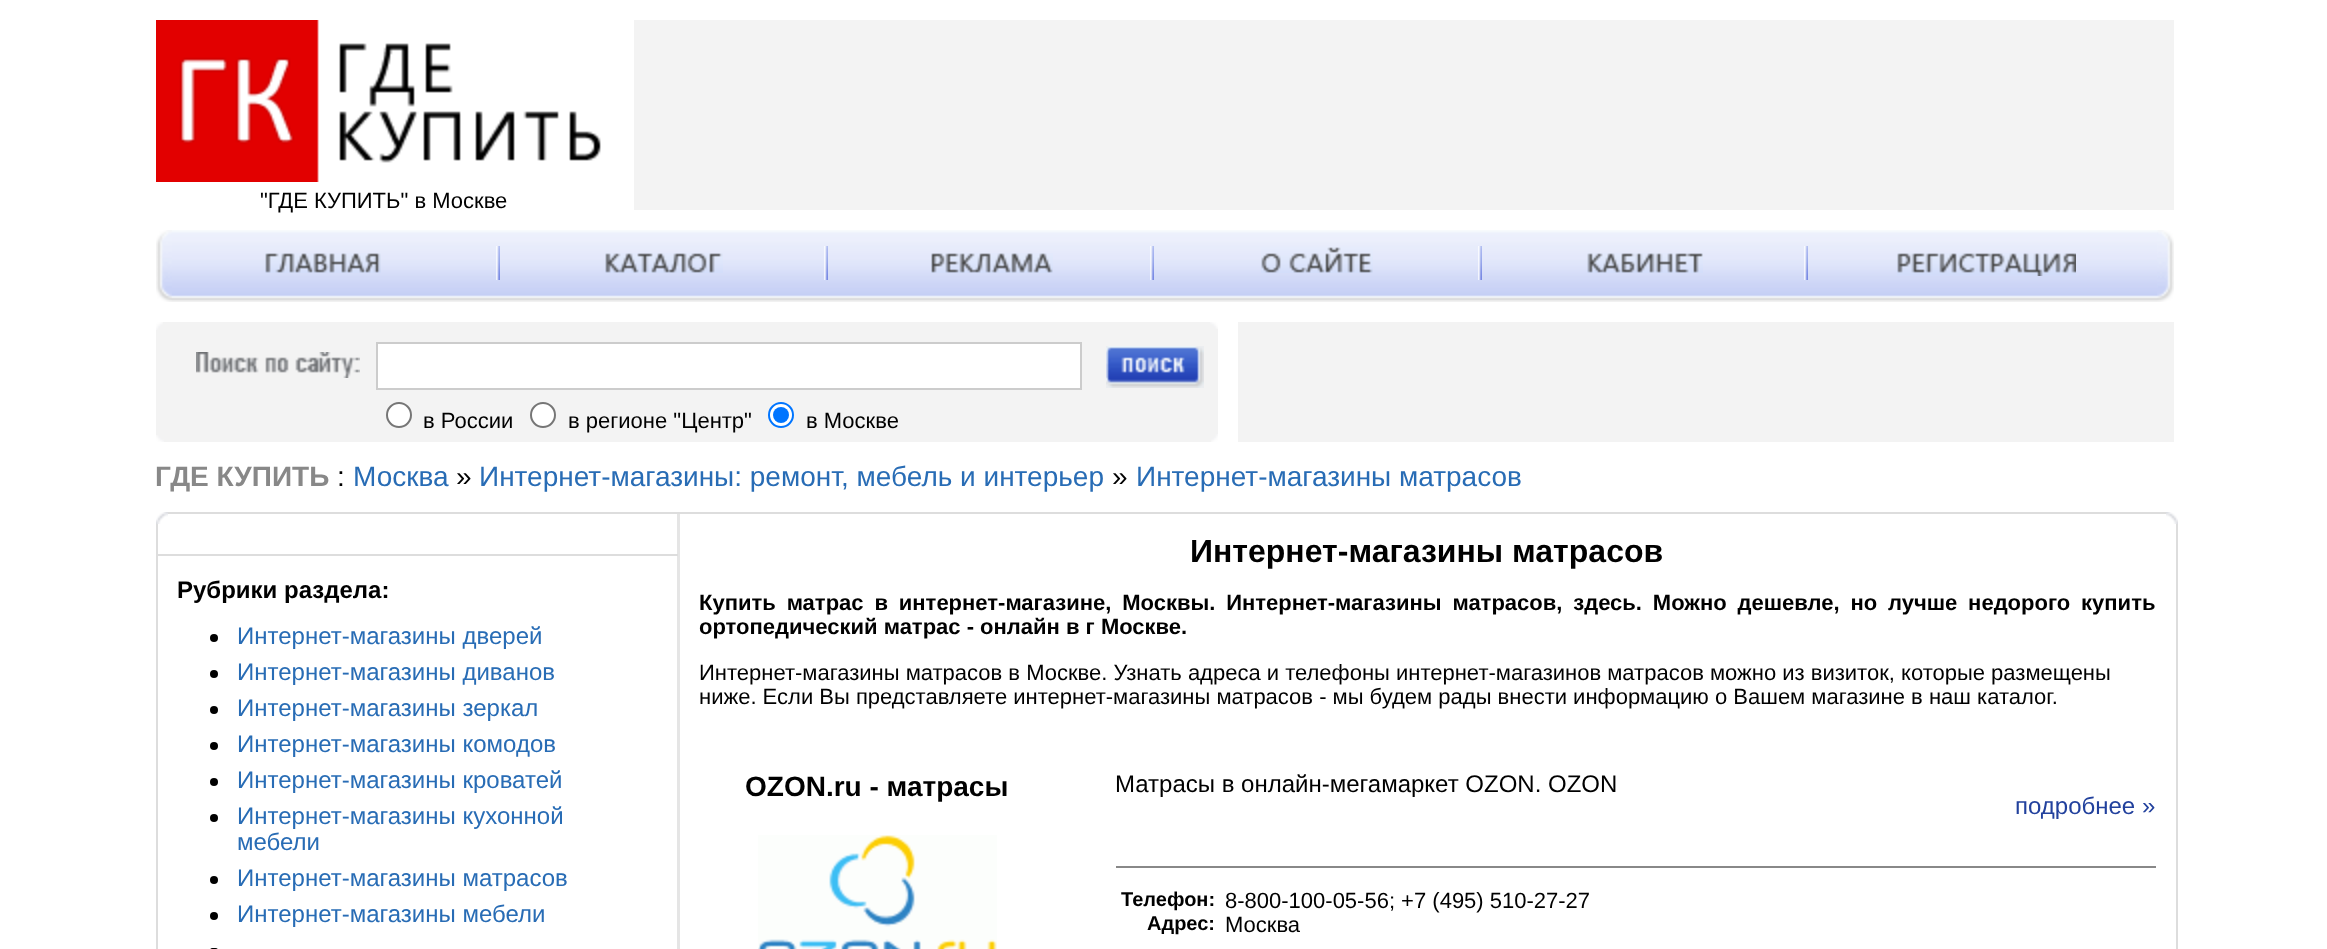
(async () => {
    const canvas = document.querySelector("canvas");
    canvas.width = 2327;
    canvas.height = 949;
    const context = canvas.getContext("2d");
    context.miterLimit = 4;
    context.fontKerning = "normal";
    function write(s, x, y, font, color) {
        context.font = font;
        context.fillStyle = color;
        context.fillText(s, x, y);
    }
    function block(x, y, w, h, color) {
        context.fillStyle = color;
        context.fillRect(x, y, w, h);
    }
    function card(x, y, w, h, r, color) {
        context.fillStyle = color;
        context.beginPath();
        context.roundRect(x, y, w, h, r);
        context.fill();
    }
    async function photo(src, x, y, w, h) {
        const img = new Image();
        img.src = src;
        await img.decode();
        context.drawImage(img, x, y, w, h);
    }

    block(0, 0, 2327, 949, "rgb(255, 255, 255)");
    await photo("media/1.png", 156, 20, 445, 162);
    write("\"ГДЕ КУПИТЬ\" в Москве", 260, 208, "22px Liberation Sans", "rgb(0, 0, 0)");
    block(634, 20, 1540, 190, "rgb(243, 243, 243)");
    await photo("media/2.png", 172, 230, 1985, 72);
    await photo("media/3.png", 156, 230, 16, 72);
    await photo("media/4.png", 496, 246, 4, 34);
    await photo("media/5.png", 265, 253, 116, 20);
    await photo("media/4.png", 824, 246, 4, 34);
    await photo("media/6.png", 605, 253, 118, 20);
    await photo("media/4.png", 1150, 246, 4, 34);
    await photo("media/7.png", 931, 253, 122, 20);
    await photo("media/4.png", 1478, 246, 4, 34);
    await photo("media/8.png", 1261, 247, 112, 26);
    await photo("media/4.png", 1804, 246, 4, 34);
    await photo("media/9.png", 1587, 253, 116, 20);
    await photo("media/10.png", 1897, 253, 179, 23);
    await photo("media/11.png", 2157, 230, 17, 72);
    block(156, 322, 1062, 120, "rgb(243, 243, 243)");
    await photo("media/12.png", 156, 322, 7, 8);
    await photo("media/13.png", 1210, 322, 8, 7);
    await photo("media/14.png", 196, 352, 164, 26);
    context.fillStyle = "rgb(255, 255, 255)";
    context.beginPath();
    context.rect(377, 343, 704, 46);
    context.fill();
    context.strokeStyle = "rgb(204, 204, 204)";
    context.lineWidth = 2;
    context.stroke();
    await photo("media/15.png", 1106, 346, 98, 42);
    context.beginPath();
    context.arc(399, 415, 12, 0, Math.PI * 2);
    context.fill();
    context.strokeStyle = "rgb(118, 118, 118)";
    context.stroke();
    write("в России", 423, 428, "22px Liberation Sans", "rgb(0, 0, 0)");
    context.fillStyle = "rgb(255, 255, 255)";
    context.beginPath();
    context.arc(543, 415, 12, 0, Math.PI * 2);
    context.fill();
    context.stroke();
    write("в регионе \"Центр\"", 568, 428, "22px Liberation Sans", "rgb(0, 0, 0)");
    context.fillStyle = "rgb(255, 255, 255)";
    context.beginPath();
    context.arc(781, 415, 12, 0, Math.PI * 2);
    context.fill();
    context.strokeStyle = "rgb(0, 117, 255)";
    context.stroke();
    context.fillStyle = "rgb(0, 117, 255)";
    context.beginPath();
    context.arc(781, 415, 8, 0, Math.PI * 2);
    context.fill();
    write("в Москве", 806, 428, "22px Liberation Sans", "rgb(0, 0, 0)");
    await photo("media/16.png", 156, 435, 8, 7);
    await photo("media/17.png", 1211, 434, 7, 8);
    block(1238, 322, 936, 120, "rgb(243, 243, 243)");
    write("ГДЕ КУПИТЬ", 155, 486, "bold 28px Liberation Sans", "rgb(136, 136, 136)");
    write(":", 337, 486, "28px Liberation Sans", "rgb(0, 0, 0)");
    write("Москва", 353, 486, "28px Liberation Sans", "rgb(40, 108, 181)");
    write("»", 456, 486, "28px Liberation Sans", "rgb(0, 0, 0)");
    write("Интернет-магазины: ремонт, мебель и интерьер", 479, 486, "28px Liberation Sans", "rgb(40, 108, 181)");
    write("»", 1112, 486, "28px Liberation Sans", "rgb(0, 0, 0)");
    write("Интернет-магазины матрасов", 1136, 486, "28px Liberation Sans", "rgb(40, 108, 181)");
    block(677, 512, 3, 437, "rgb(229, 229, 229)");
    context.strokeStyle = "rgb(221, 221, 221)";
    context.strokeRect(157, 513, 2020, 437);
    await photo("media/18.png", 156, 512, 12, 12);
    await photo("media/19.png", 2166, 512, 12, 12);
    block(158, 554, 520, 2, "rgb(221, 221, 221)");
    write("Рубрики раздела:", 177, 598, "bold 24px Liberation Sans", "rgb(0, 0, 0)");
    context.beginPath();
    context.arc(214, 638, 4, 0, Math.PI * 2);
    context.fill();
    write("Интернет-магазины дверей", 237, 644, "24px Liberation Sans", "rgb(40, 108, 181)");
    context.fillStyle = "rgb(0, 0, 0)";
    context.beginPath();
    context.arc(214, 674, 4, 0, Math.PI * 2);
    context.fill();
    write("Интернет-магазины диванов", 237, 680, "24px Liberation Sans", "rgb(40, 108, 181)");
    context.fillStyle = "rgb(0, 0, 0)";
    context.beginPath();
    context.arc(214, 710, 4, 0, Math.PI * 2);
    context.fill();
    write("Интернет-магазины зеркал", 237, 716, "24px Liberation Sans", "rgb(40, 108, 181)");
    context.fillStyle = "rgb(0, 0, 0)";
    context.beginPath();
    context.arc(214, 746, 4, 0, Math.PI * 2);
    context.fill();
    write("Интернет-магазины комодов", 237, 752, "24px Liberation Sans", "rgb(40, 108, 181)");
    context.fillStyle = "rgb(0, 0, 0)";
    context.beginPath();
    context.arc(214, 782, 4, 0, Math.PI * 2);
    context.fill();
    write("Интернет-магазины кроватей", 237, 788, "24px Liberation Sans", "rgb(40, 108, 181)");
    context.fillStyle = "rgb(0, 0, 0)";
    context.beginPath();
    context.arc(214, 818, 4, 0, Math.PI * 2);
    context.fill();
    write("Интернет-магазины кухонной", 237, 824, "24px Liberation Sans", "rgb(40, 108, 181)");
    write("мебели", 237, 850, "24px Liberation Sans", "rgb(40, 108, 181)");
    context.fillStyle = "rgb(0, 0, 0)";
    context.beginPath();
    context.arc(214, 880, 4, 0, Math.PI * 2);
    context.fill();
    write("Интернет-магазины матрасов", 237, 886, "24px Liberation Sans", "rgb(40, 108, 181)");
    context.fillStyle = "rgb(0, 0, 0)";
    context.beginPath();
    context.arc(214, 916, 4, 0, Math.PI * 2);
    context.fill();
    write("Интернет-магазины мебели", 237, 922, "24px Liberation Sans", "rgb(40, 108, 181)");
    card(210, 948, 8, 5, 4, "rgb(0, 0, 0)");
    write("Интернет-магазины матрасов", 1190, 562, "bold 32px Liberation Sans", "rgb(0, 0, 0)");
    context.wordSpacing = "4.75px";
    write("Купить матрас в интернет-магазине, Москвы. Интернет-магазины матрасов, здесь. Можно дешевле, но лучше недорого купить", 699, 610, "bold 22px Liberation Sans", "rgb(0, 0, 0)");
    context.wordSpacing = "0px";
    write("ортопедический матрас - онлайн в г Москве.", 699, 634, "bold 22px Liberation Sans", "rgb(0, 0, 0)");
    write("Интернет-магазины матрасов в Москве. Узнать адреса и телефоны интернет-магазинов матрасов можно из визиток, которые размещены", 699, 680, "22px Liberation Sans", "rgb(0, 0, 0)");
    write("ниже. Если Вы представляете интернет-магазины матрасов - мы будем рады внести информацию о Вашем магазине в наш каталог.", 699, 704, "22px Liberation Sans", "rgb(0, 0, 0)");
    write("OZON.ru - матрасы", 745, 796, "bold 28px Liberation Sans", "rgb(0, 0, 0)");
    await photo("media/20.png", 758, 835, 239, 114);
    write("Матрасы в онлайн-мегамаркет OZON. OZON", 1115, 792, "24px Liberation Sans", "rgb(0, 0, 0)");
    write("подробнее »", 2015, 814, "24px Liberation Sans", "rgb(34, 65, 157)");
    block(1116, 866, 1040, 2, "rgb(136, 136, 136)");
    write("Телефон:", 1121, 906, "bold 20px Liberation Sans", "rgb(0, 0, 0)");
    write("8-800-100-05-56; +7 (495) 510-27-27", 1225, 908, "22px Liberation Sans", "rgb(0, 0, 0)");
    write("Адрес:", 1147, 930, "bold 20px Liberation Sans", "rgb(0, 0, 0)");
    write("Москва", 1225, 932, "22px Liberation Sans", "rgb(0, 0, 0)");
})();
